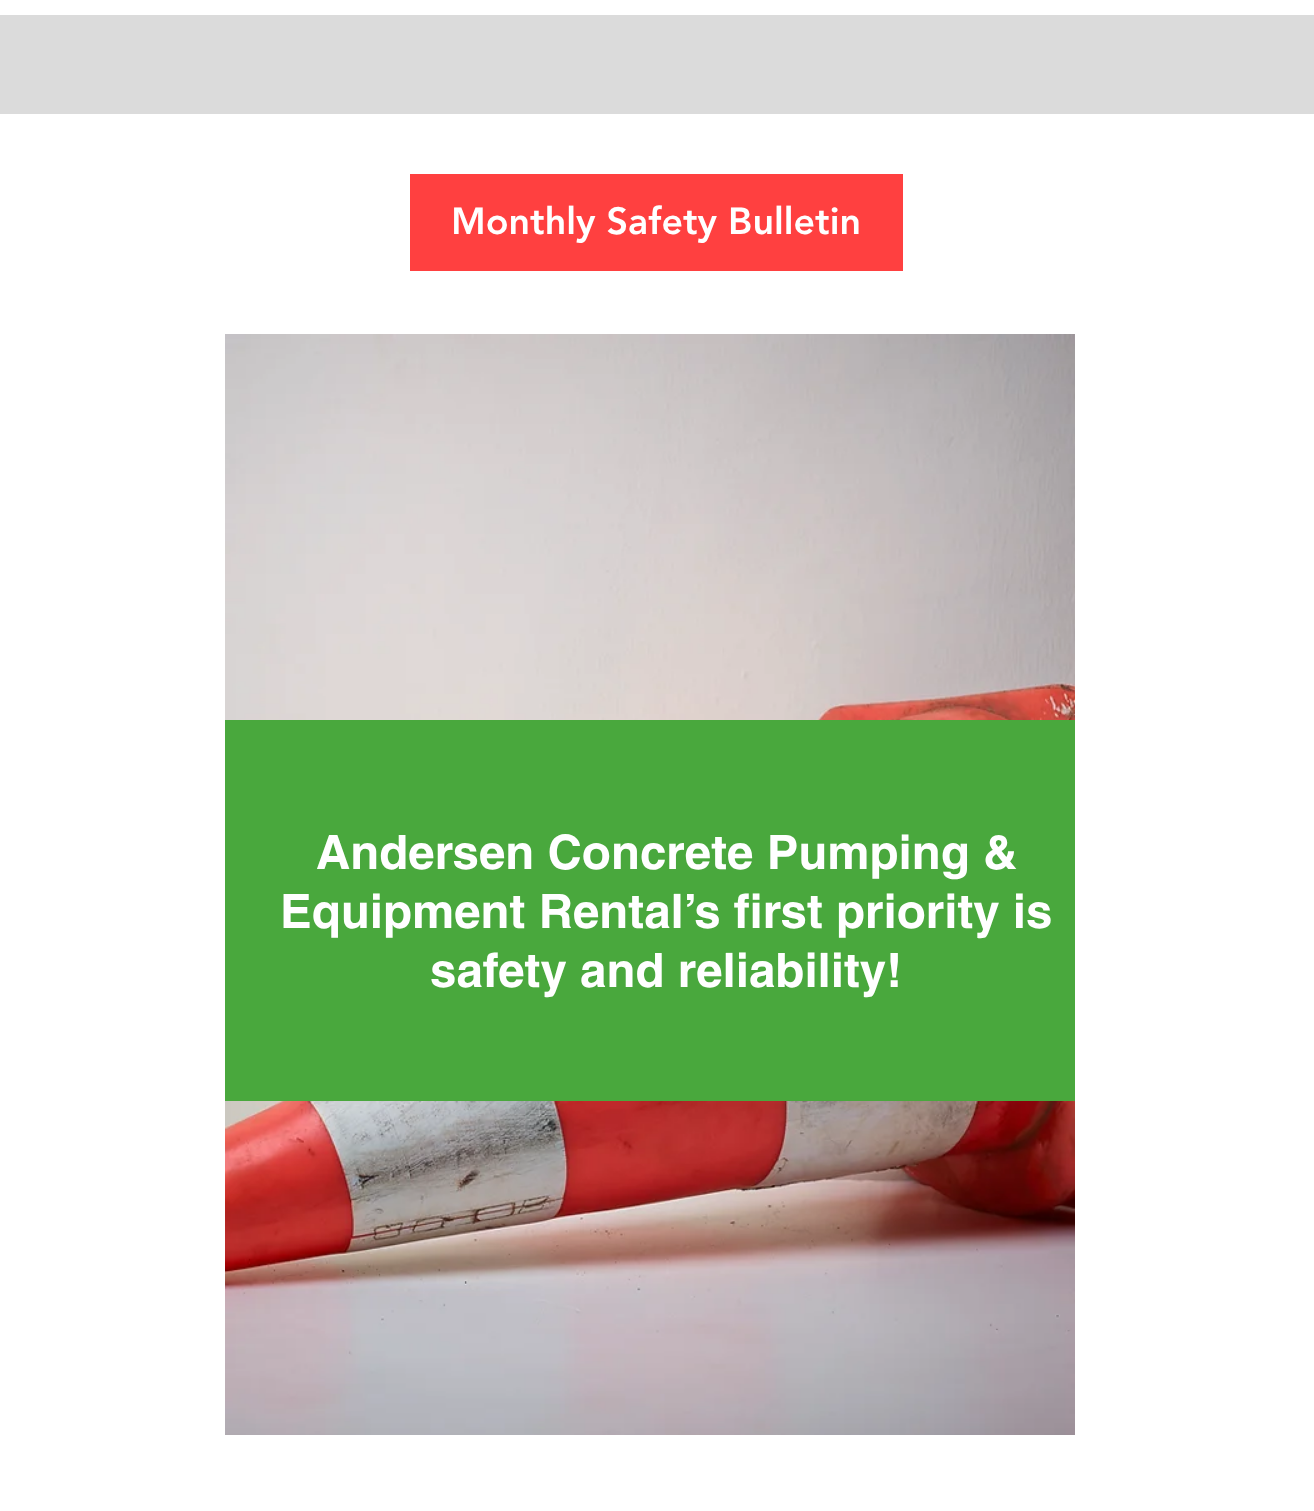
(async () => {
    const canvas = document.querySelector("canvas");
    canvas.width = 1314;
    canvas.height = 1511;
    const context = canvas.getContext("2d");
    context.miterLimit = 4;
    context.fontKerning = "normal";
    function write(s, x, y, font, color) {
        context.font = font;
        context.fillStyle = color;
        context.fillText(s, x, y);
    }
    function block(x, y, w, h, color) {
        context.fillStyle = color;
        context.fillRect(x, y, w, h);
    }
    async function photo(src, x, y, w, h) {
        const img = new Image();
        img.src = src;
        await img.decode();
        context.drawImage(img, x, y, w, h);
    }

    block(0, 0, 1314, 1511, "rgb(255, 255, 255)");
    block(0, 15, 1314, 99, "rgb(219, 219, 219)");
    block(410, 174, 493, 97, "rgb(255, 64, 64)");
    write("Monthly Safety Bulletin", 451, 234, "900 37.5px 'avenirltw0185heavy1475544'", "rgb(255, 255, 255)");
    await photo("media/1.png", 225, 334, 850, 1101);
    block(225, 720, 850, 381, "rgb(73, 168, 61)");
    write("Andersen Concrete Pumping &", 316, 869, "bold 47.5px helvetica", "rgb(255, 255, 255)");
    write("Equipment Rental’s first priority is", 280, 928, "bold 47.5px helvetica", "rgb(255, 255, 255)");
    write("safety and reliability!", 430, 987, "bold 47.5px helvetica", "rgb(255, 255, 255)");
})();
